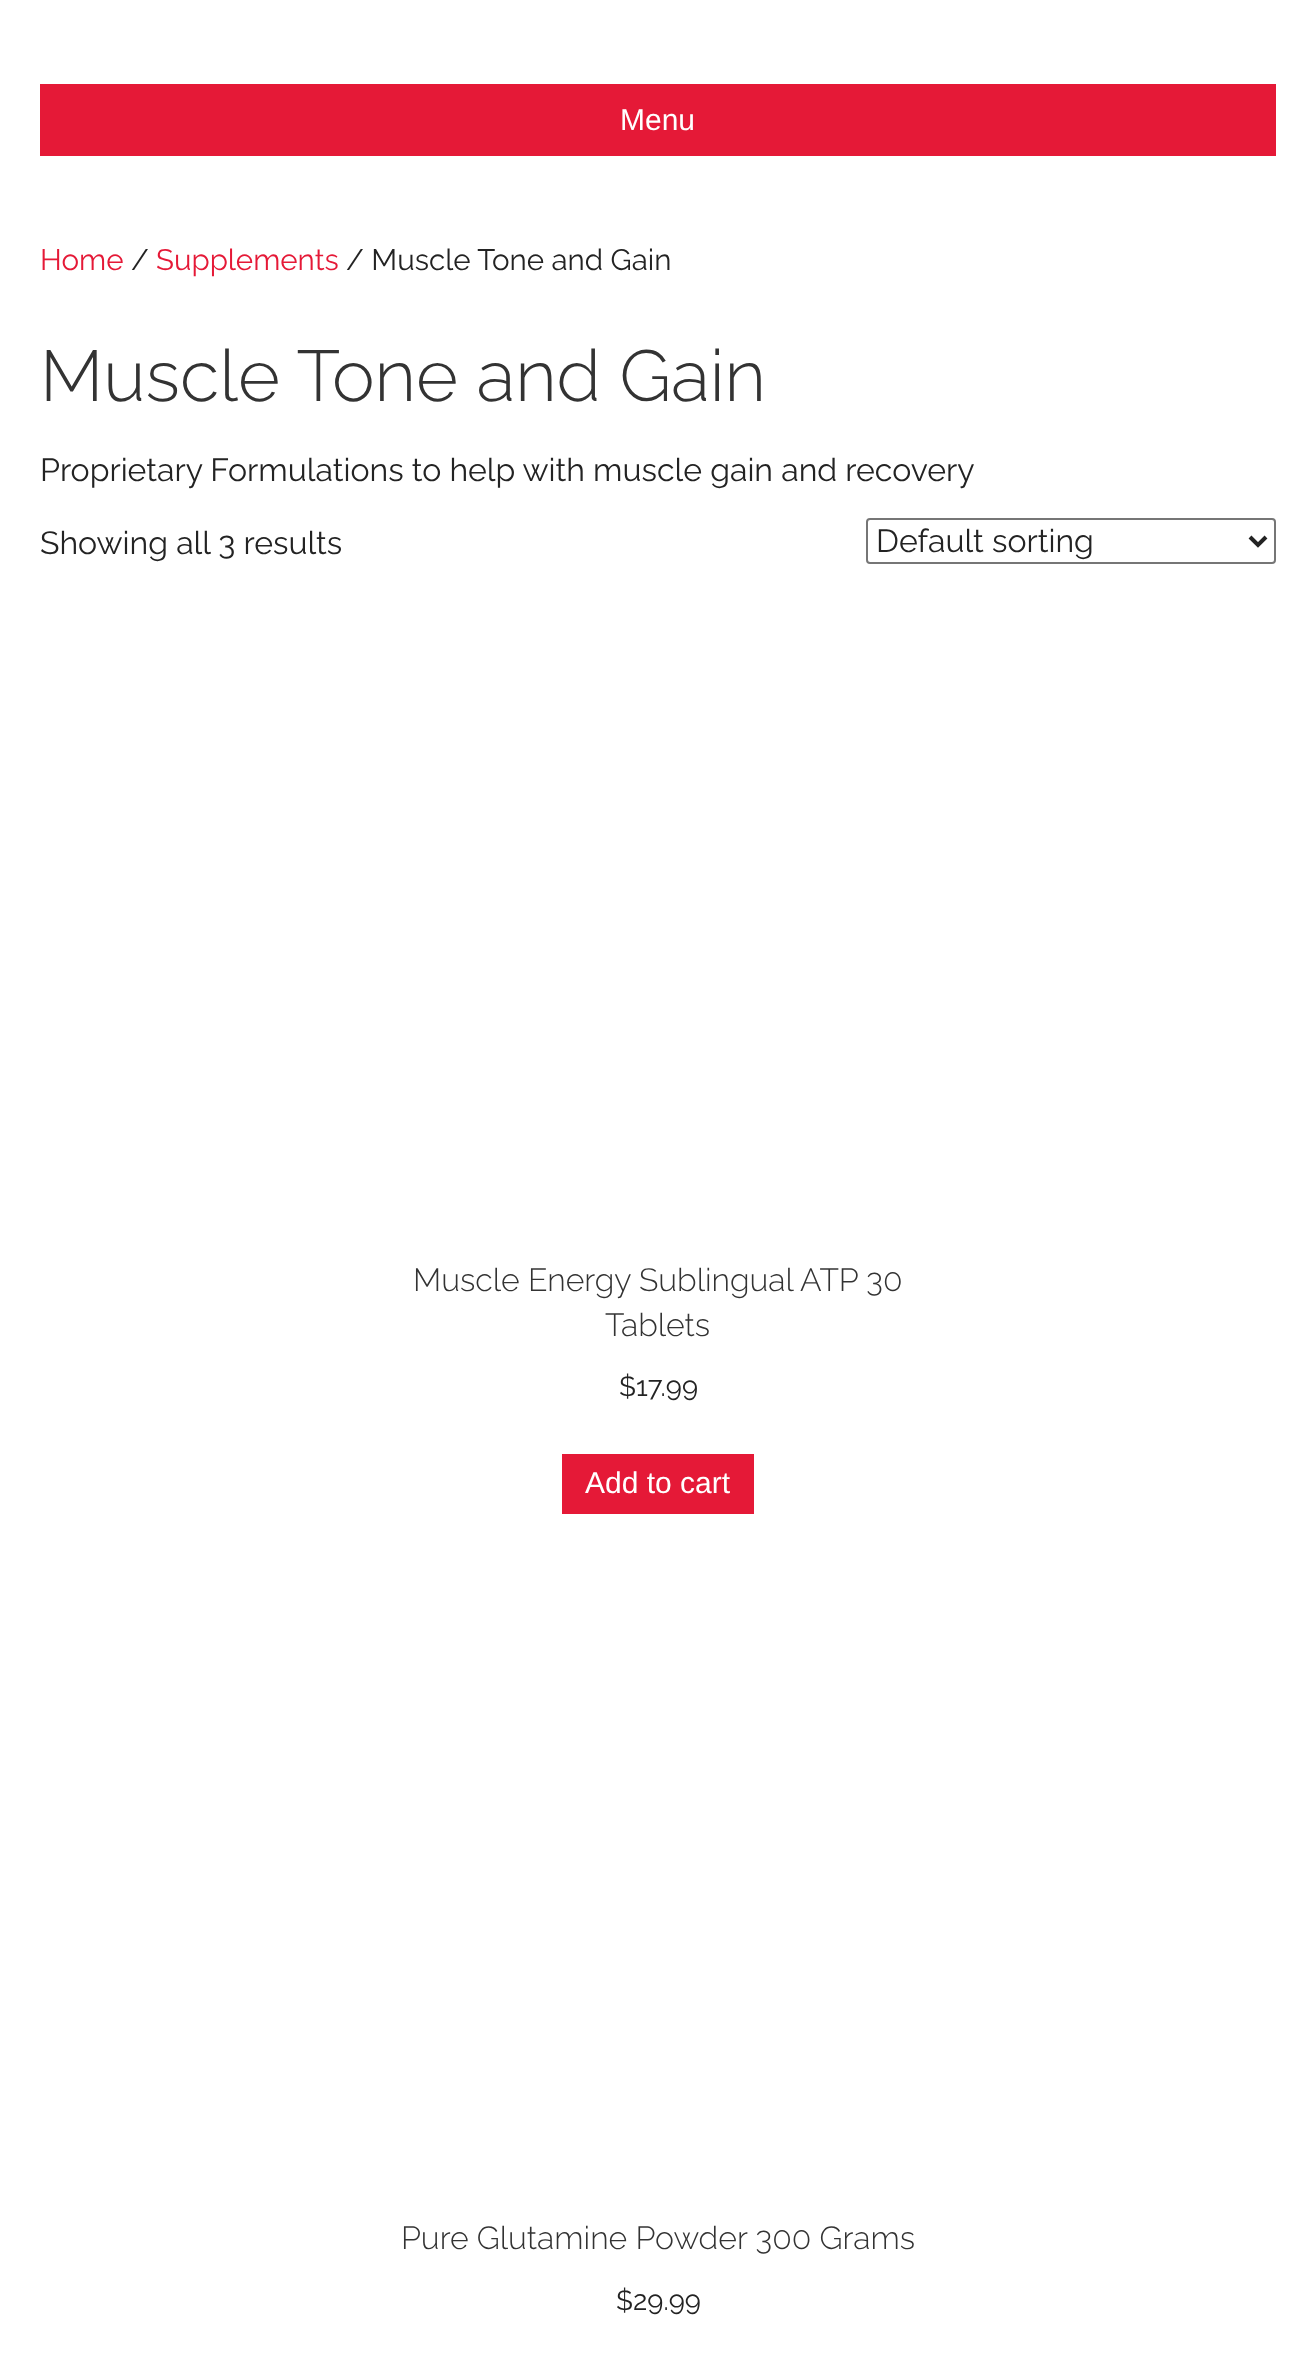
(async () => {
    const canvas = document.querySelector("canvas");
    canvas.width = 1316;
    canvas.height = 2360;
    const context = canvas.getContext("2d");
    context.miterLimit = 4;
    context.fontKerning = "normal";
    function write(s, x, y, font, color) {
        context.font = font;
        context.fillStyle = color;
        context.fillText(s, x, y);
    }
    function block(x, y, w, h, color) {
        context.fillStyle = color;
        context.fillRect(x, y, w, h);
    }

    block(0, 0, 1316, 2360, "rgb(255, 255, 255)");
    block(40, 84, 1236, 72, "rgb(229, 25, 55)");
    write("Menu", 620, 130, "30px Liberation Sans", "rgb(255, 255, 255)");
    write("Home", 40, 270, "29.5px Raleway", "rgb(229, 25, 55)");
    write("/", 131, 270, "29.5px Raleway", "rgb(35, 35, 35)");
    write("Supplements", 156, 270, "29.5px Raleway", "rgb(229, 25, 55)");
    write("/ Muscle Tone and Gain", 346, 270, "29.5px Raleway", "rgb(35, 35, 35)");
    write("Muscle Tone and Gain", 40, 401, "300 72px Raleway", "rgb(51, 51, 51)");
    write("Proprietary Formulations to help with muscle gain and recovery", 40, 481, "32px Raleway", "rgb(35, 35, 35)");
    write("Showing all 3 results", 40, 554, "32px Raleway", "rgb(35, 35, 35)");
    context.beginPath();
    context.roundRect(867, 519, 408, 44, 3);
    context.strokeStyle = "rgb(118, 118, 118)";
    context.lineWidth = 2;
    context.stroke();
    context.beginPath();
    context.moveTo(1250, 537);
    context.lineTo(1258, 545);
    context.lineTo(1266, 537);
    context.strokeStyle = "rgb(35, 35, 35)";
    context.lineWidth = 4;
    context.stroke();
    write("Default sorting", 876, 552, "32px Raleway", "rgb(35, 35, 35)");
    write("Muscle Energy Sublingual ATP 30", 413, 1291, "300 32px Raleway", "rgb(51, 51, 51)");
    write("Tablets", 605, 1336, "300 32px Raleway", "rgb(51, 51, 51)");
    write("$17.99", 619, 1396, "27.5px Raleway", "rgb(35, 35, 35)");
    block(562, 1454, 192, 60, "rgb(229, 25, 55)");
    write("Add to cart", 585, 1493, "30px Liberation Sans", "rgb(255, 255, 255)");
    write("Pure Glutamine Powder 300 Grams", 401, 2249, "300 32px Raleway", "rgb(51, 51, 51)");
    write("$29.99", 616, 2310, "27.5px Raleway", "rgb(35, 35, 35)");
})();
